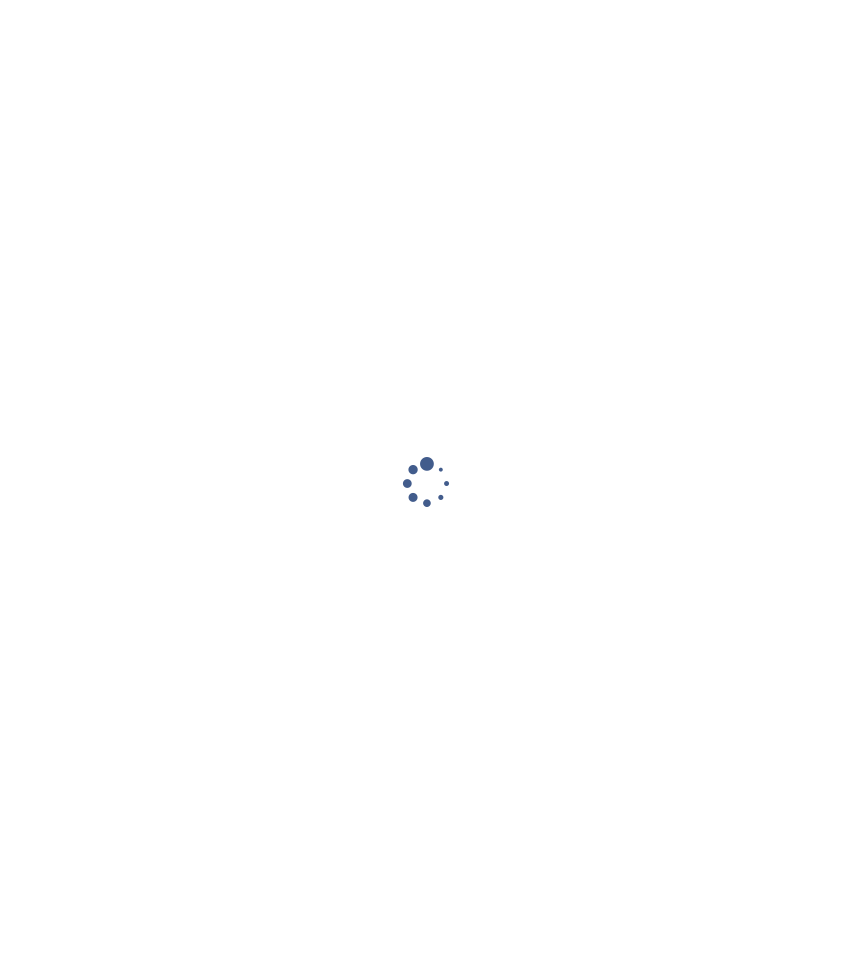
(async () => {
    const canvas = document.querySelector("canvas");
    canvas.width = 852;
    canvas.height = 964;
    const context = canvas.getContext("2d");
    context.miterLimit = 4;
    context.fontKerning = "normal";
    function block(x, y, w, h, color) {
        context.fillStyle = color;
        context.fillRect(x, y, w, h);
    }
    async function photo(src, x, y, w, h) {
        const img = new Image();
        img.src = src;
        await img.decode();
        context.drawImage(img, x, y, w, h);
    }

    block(0, 0, 852, 964, "rgb(255, 255, 255)");
    await photo("media/1.png", 402, 457, 48, 50);
})();
